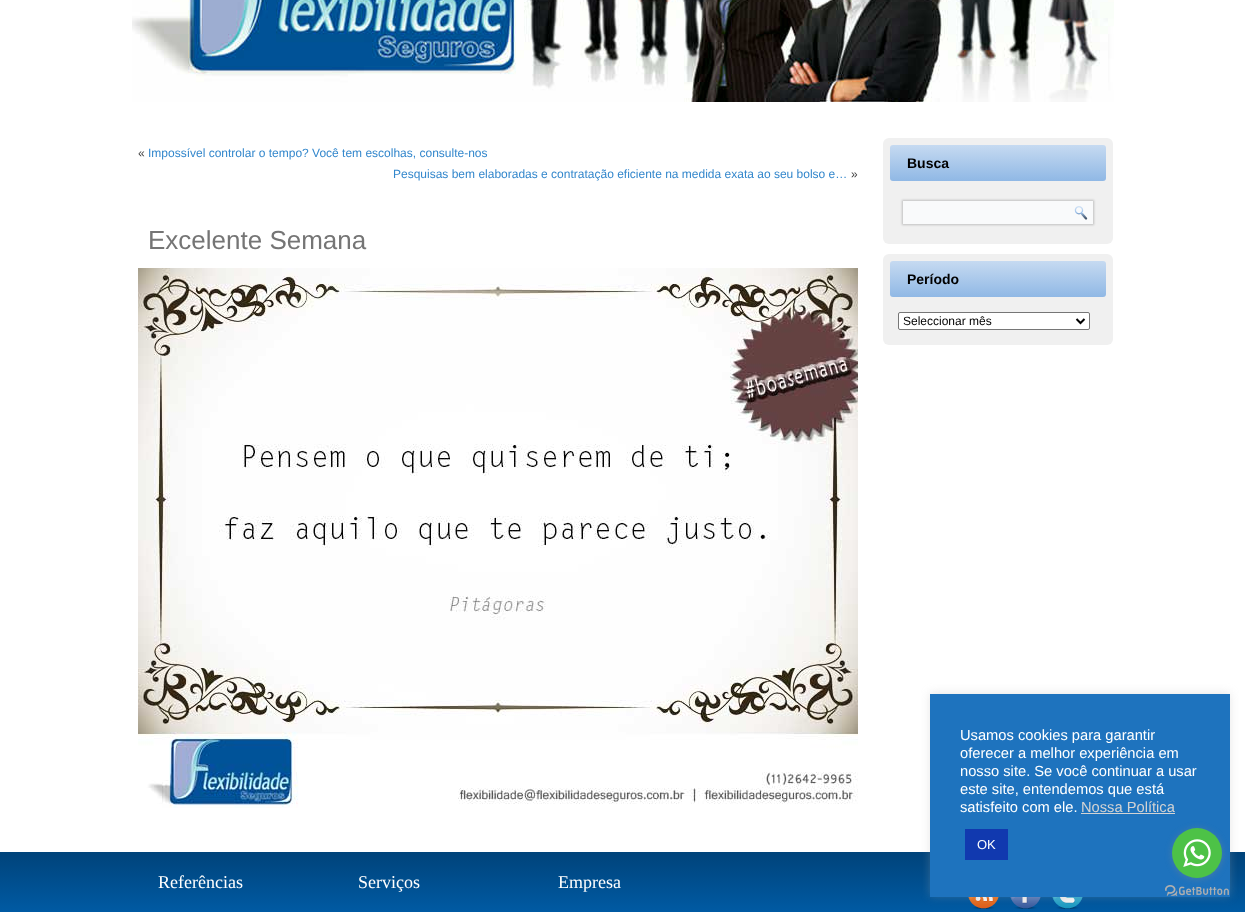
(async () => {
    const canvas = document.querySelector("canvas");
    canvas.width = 1245;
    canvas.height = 912;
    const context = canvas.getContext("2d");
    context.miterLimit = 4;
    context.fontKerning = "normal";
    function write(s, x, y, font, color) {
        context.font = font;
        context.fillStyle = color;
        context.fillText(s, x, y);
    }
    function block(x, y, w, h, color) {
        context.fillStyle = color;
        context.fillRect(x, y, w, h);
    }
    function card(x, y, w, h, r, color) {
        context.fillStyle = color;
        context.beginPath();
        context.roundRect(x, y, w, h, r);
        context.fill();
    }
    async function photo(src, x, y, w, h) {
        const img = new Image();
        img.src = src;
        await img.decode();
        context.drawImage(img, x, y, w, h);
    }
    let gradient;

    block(0, 0, 1245, 912, "rgb(255, 255, 255)");
    await photo("media/1.png", 132, 0, 982, 102);
    write("«", 138, 157, "12px Liberation Sans", "rgb(64, 64, 64)");
    write("Impossível controlar o tempo? Você tem escolhas, consulte-nos", 148, 157, "12px Liberation Sans", "rgb(51, 135, 204)");
    write("Pesquisas bem elaboradas e contratação eficiente na medida exata ao seu bolso e…", 393, 178, "12px Liberation Sans", "rgb(51, 135, 204)");
    write("»", 851, 178, "12px Liberation Sans", "rgb(64, 64, 64)");
    write("Excelente Semana", 148, 249, "26px Liberation Sans", "rgb(117, 117, 117)");
    await photo("media/2.png", 138, 268, 720, 540);
    card(883, 138, 230, 106, 6, "rgb(240, 240, 240)");
    gradient = context.createLinearGradient(998, 145, 998, 181);
    gradient.addColorStop(0, "rgb(198, 218, 241)");
    gradient.addColorStop(1, "rgb(144, 184, 229)");
    context.fillStyle = gradient;
    context.beginPath();
    context.roundRect(890, 145, 216, 36, 3);
    context.fill();
    write("Busca", 907, 168, "bold 14px Liberation Sans", "rgb(0, 0, 0)");
    context.fillStyle = "rgba(0, 0, 0, 0.2)";
    context.filter = "blur(1px)";
    context.beginPath();
    context.rect(902, 200, 192, 25);
    context.fill();
    context.filter = "none";
    block(903, 201, 190, 23, "rgb(249, 250, 251)");
    await photo("media/3.png", 1074, 206, 14, 14);
    card(883, 254, 230, 91, 6, "rgb(240, 240, 240)");
    gradient = context.createLinearGradient(998, 261, 998, 297);
    gradient.addColorStop(0, "rgb(198, 218, 241)");
    gradient.addColorStop(1, "rgb(144, 184, 229)");
    context.fillStyle = gradient;
    context.beginPath();
    context.roundRect(890, 261, 216, 36, 3);
    context.fill();
    write("Período", 907, 284, "bold 14px Liberation Sans", "rgb(0, 0, 0)");
    context.fillStyle = "rgb(255, 255, 255)";
    context.beginPath();
    context.roundRect(898.5, 312.5, 191, 17, 1.5);
    context.fill();
    context.strokeStyle = "rgb(118, 118, 118)";
    context.stroke();
    context.beginPath();
    context.moveTo(1076.5, 319);
    context.lineTo(1080.5, 323);
    context.lineTo(1084.5, 319);
    context.strokeStyle = "rgb(0, 0, 0)";
    context.lineWidth = 2;
    context.stroke();
    write("Seleccionar mês", 903, 325, "12px Liberation Sans", "rgb(0, 0, 0)");
    gradient = context.createLinearGradient(623, 852, 623, 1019);
    gradient.addColorStop(0, "rgb(0, 67, 122)");
    gradient.addColorStop(0.4, "rgb(0, 93, 168)");
    gradient.addColorStop(0.5, "rgb(0, 95, 173)");
    gradient.addColorStop(0.6, "rgb(0, 93, 168)");
    gradient.addColorStop(1, "rgb(0, 67, 122)");
    context.fillStyle = gradient;
    context.fillRect(0, 852, 1245, 60);
    write("Referências", 158, 888, "18px Liberation Serif", "rgb(255, 255, 255)");
    write("Serviços", 358, 888, "18px Liberation Serif", "rgb(255, 255, 255)");
    write("Empresa", 558, 888, "18px Liberation Serif", "rgb(255, 255, 255)");
    await photo("media/4.png", 968, 897, 31, 12);
    await photo("media/5.png", 1010, 897, 31, 12);
    await photo("media/6.png", 1052, 897, 31, 12);
    context.fillStyle = "rgba(172, 171, 171, 0.3)";
    context.filter = "blur(5px)";
    context.beginPath();
    context.rect(930, 693, 300, 203);
    context.fill();
    context.filter = "none";
    block(930, 694, 300, 203, "rgb(30, 115, 190)");
    write("Usamos cookies para garantir", 960, 740, "14.7px Liberation Sans", "rgb(255, 255, 255)");
    write("oferecer a melhor experiência em", 960, 758, "14.7px Liberation Sans", "rgb(255, 255, 255)");
    write("nosso site. Se você continuar a usar", 960, 776, "14.7px Liberation Sans", "rgb(255, 255, 255)");
    write("este site, entendemos que está", 960, 794, "14.7px Liberation Sans", "rgb(255, 255, 255)");
    write("satisfeito com ele.", 960, 812, "14.7px Liberation Sans", "rgb(255, 255, 255)");
    write("Nossa Política", 1081, 812, "14.7px Liberation Sans", "rgb(211, 211, 211)");
    block(1081, 813, 94, 1, "rgb(211, 211, 211)");
    block(965, 829, 43, 31, "rgb(17, 57, 175)");
    write("OK", 977, 849, "13px Liberation Sans", "rgb(255, 255, 255)");
    await photo("media/8.png", 1165, 885, 64, 11);
    context.fillStyle = "rgba(136, 136, 136, 0.4)";
    context.filter = "blur(3.5px)";
    context.beginPath();
    context.roundRect(1172, 829, 50, 50, 25);
    context.fill();
    context.filter = "none";
    context.fillStyle = "rgb(77, 194, 71)";
    context.beginPath();
    context.arc(1197, 853, 25, 0, Math.PI * 2);
    context.fill();
    await photo("media/7.png", 1183, 839, 28, 28);
})();
